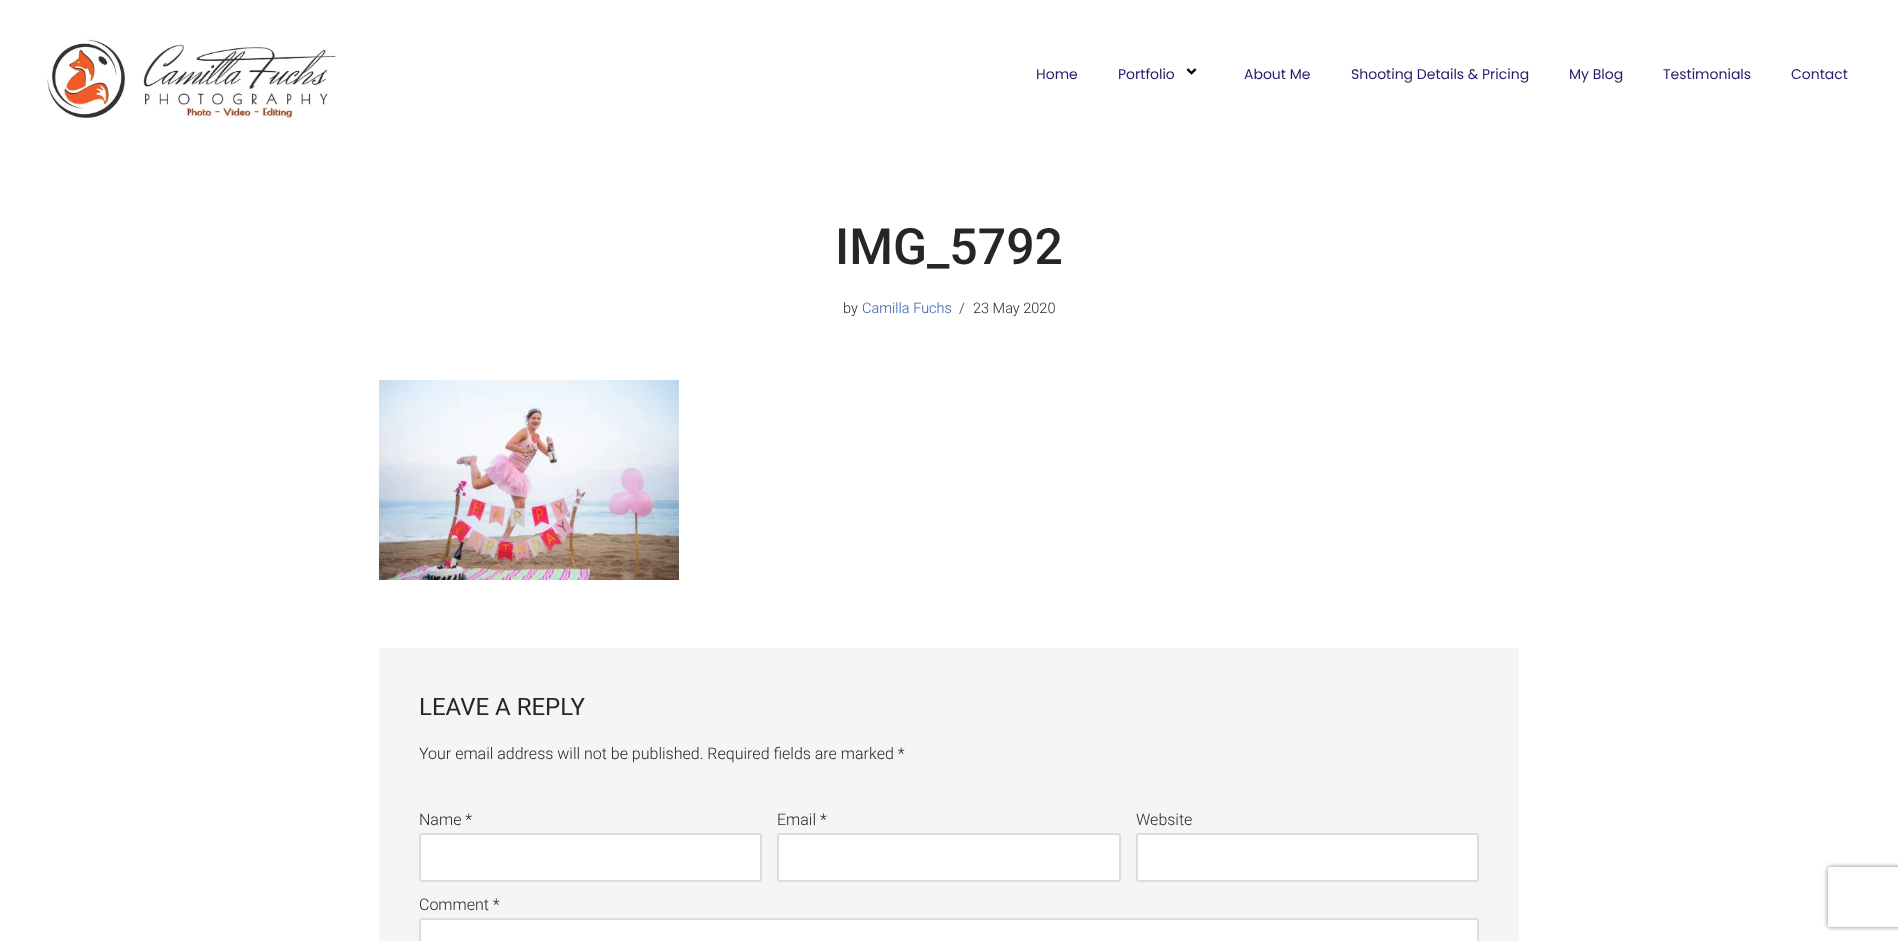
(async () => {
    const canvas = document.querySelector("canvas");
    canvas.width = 1898;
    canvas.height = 941;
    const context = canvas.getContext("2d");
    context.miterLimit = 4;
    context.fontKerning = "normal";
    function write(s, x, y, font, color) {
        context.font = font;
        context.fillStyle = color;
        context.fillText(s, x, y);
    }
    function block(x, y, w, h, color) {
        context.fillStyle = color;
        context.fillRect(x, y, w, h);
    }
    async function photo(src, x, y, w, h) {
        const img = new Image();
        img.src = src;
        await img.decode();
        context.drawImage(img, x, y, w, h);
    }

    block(0, 0, 1898, 941, "rgb(255, 255, 255)");
    await photo("media/1.png", 47, 39, 289, 81);
    write("Home", 1036, 79, "14px Poppins", "rgb(42, 26, 108)");
    write("Portfolio", 1118, 79, "14px Poppins", "rgb(42, 26, 108)");
    await photo("media/2.png", 1186, 68, 11, 7);
    write("About Me", 1244, 79, "14px Poppins", "rgb(42, 26, 108)");
    write("Shooting Details & Pricing", 1351, 79, "14px Poppins", "rgb(42, 26, 108)");
    write("My Blog", 1569, 79, "14px Poppins", "rgb(42, 26, 108)");
    write("Testimonials", 1663, 79, "14px Poppins", "rgb(42, 26, 108)");
    write("Contact", 1791, 79, "14px Poppins", "rgb(42, 26, 108)");
    write("IMG_5792", 835, 264, "500 50px Roboto", "rgb(39, 38, 38)");
    write("by", 843, 313, "300 14.5px Roboto", "rgb(39, 38, 38)");
    write("Camilla Fuchs", 862, 313, "300 14.5px Roboto", "rgb(47, 90, 174)");
    write("/", 959, 313, "300 14.5px Roboto", "rgb(39, 38, 38)");
    write("23 May 2020", 973, 313, "300 14.5px Roboto", "rgb(39, 38, 38)");
    await photo("media/3.png", 379, 380, 300, 200);
    block(379, 648, 1140, 293, "rgb(244, 245, 247)");
    write("LEAVE A REPLY", 419, 715, "24px Roboto", "rgb(39, 38, 38)");
    write("Your email address will not be published. Required fields are marked *", 419, 759, "300 16px Roboto", "rgb(39, 38, 38)");
    write("Name *", 419, 825, "300 16px Roboto", "rgb(39, 38, 38)");
    context.fillStyle = "rgb(255, 255, 255)";
    context.beginPath();
    context.roundRect(420, 834, 341, 47, 2);
    context.fill();
    context.strokeStyle = "rgb(221, 221, 221)";
    context.lineWidth = 2;
    context.stroke();
    write("Email *", 777, 825, "300 16px Roboto", "rgb(39, 38, 38)");
    context.fillStyle = "rgb(255, 255, 255)";
    context.beginPath();
    context.roundRect(778, 834, 342, 47, 2);
    context.fill();
    context.stroke();
    write("Website", 1136, 825, "300 16px Roboto", "rgb(39, 38, 38)");
    context.fillStyle = "rgb(255, 255, 255)";
    context.beginPath();
    context.roundRect(1137, 834, 341, 47, 2);
    context.fill();
    context.stroke();
    write("Comment *", 419, 910, "300 16px Roboto", "rgb(39, 38, 38)");
    context.fillStyle = "rgb(255, 255, 255)";
    context.beginPath();
    context.roundRect(420, 919, 1058, 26, 2);
    context.fill();
    context.stroke();
    context.save();
    context.beginPath();
    context.moveTo(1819, 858);
    context.lineTo(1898, 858);
    context.lineTo(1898, 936);
    context.lineTo(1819, 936);
    context.closePath();
    context.moveTo(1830, 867);
    context.lineTo(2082, 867);
    context.bezierCurveTo(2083, 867, 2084, 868, 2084, 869);
    context.lineTo(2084, 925);
    context.bezierCurveTo(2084, 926, 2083, 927, 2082, 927);
    context.lineTo(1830, 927);
    context.bezierCurveTo(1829, 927, 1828, 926, 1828, 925);
    context.lineTo(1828, 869);
    context.bezierCurveTo(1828, 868, 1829, 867, 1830, 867);
    context.closePath();
    context.clip("evenodd");
    context.fillStyle = "rgb(128, 128, 128)";
    context.filter = "blur(2.5px)";
    context.beginPath();
    context.roundRect(1828, 867, 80, 60, 2);
    context.fill();
    context.filter = "none";
    context.restore();
})();
